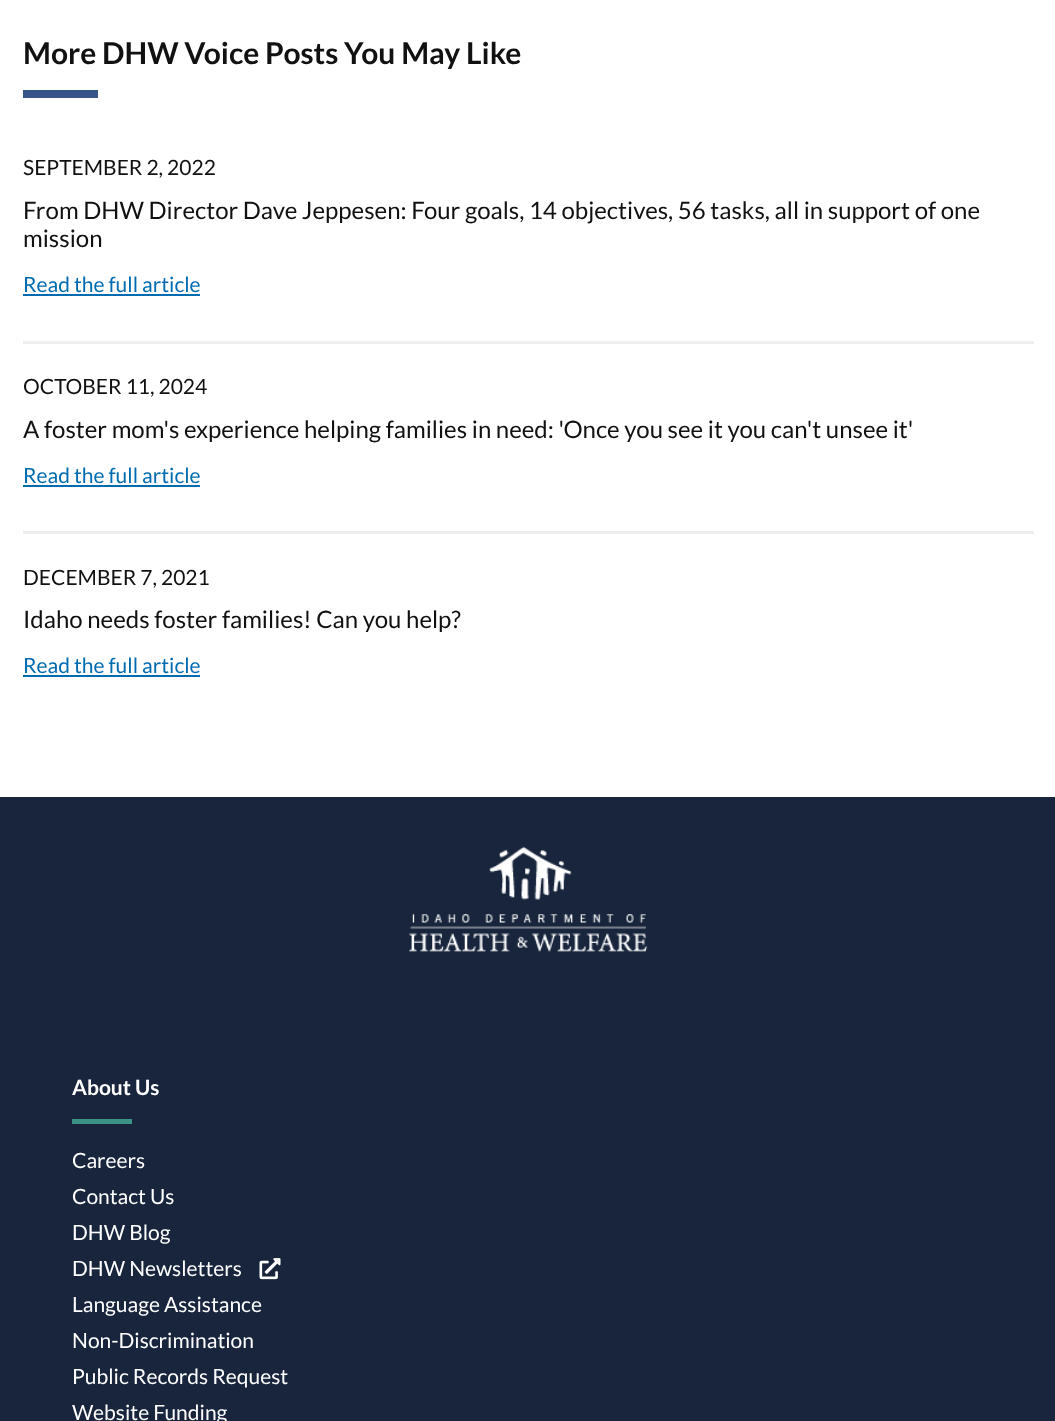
(async () => {
    const canvas = document.querySelector("canvas");
    canvas.width = 1055;
    canvas.height = 1421;
    const context = canvas.getContext("2d");
    context.miterLimit = 4;
    context.fontKerning = "normal";
    function write(s, x, y, font, color) {
        context.font = font;
        context.fillStyle = color;
        context.fillText(s, x, y);
    }
    function block(x, y, w, h, color) {
        context.fillStyle = color;
        context.fillRect(x, y, w, h);
    }
    async function photo(src, x, y, w, h) {
        const img = new Image();
        img.src = src;
        await img.decode();
        context.drawImage(img, x, y, w, h);
    }

    block(0, 0, 1055, 1421, "rgb(255, 255, 255)");
    write("More DHW Voice Posts You May Like", 23, 64, "bold 30px Lato", "rgb(17, 17, 17)");
    block(23, 90, 75, 8, "rgb(55, 85, 138)");
    block(23, 341, 1011, 3, "rgb(238, 238, 238)");
    write("SEPTEMBER 2, 2022", 23, 175, "21px Lato", "rgb(17, 17, 17)");
    write("From DHW Director Dave Jeppesen: Four goals, 14 objectives, 56 tasks, all in support of one", 23, 219, "24px Lato", "rgb(17, 17, 17)");
    write("mission", 23, 247, "24px Lato", "rgb(17, 17, 17)");
    write("Read the full article", 23, 292, "21px Lato", "rgb(0, 107, 176)");
    block(23, 294, 177, 2, "rgb(0, 107, 176)");
    block(23, 531, 1011, 3, "rgb(238, 238, 238)");
    write("OCTOBER 11, 2024", 23, 394, "21px Lato", "rgb(17, 17, 17)");
    write("A foster mom's experience helping families in need: 'Once you see it you can't unsee it'", 23, 438, "24px Lato", "rgb(17, 17, 17)");
    write("Read the full article", 23, 483, "21px Lato", "rgb(0, 107, 176)");
    block(23, 485, 177, 2, "rgb(0, 107, 176)");
    write("DECEMBER 7, 2021", 23, 585, "21px Lato", "rgb(17, 17, 17)");
    write("Idaho needs foster families! Can you help?", 23, 628, "24px Lato", "rgb(17, 17, 17)");
    write("Read the full article", 23, 673, "21px Lato", "rgb(0, 107, 176)");
    block(23, 675, 177, 2, "rgb(0, 107, 176)");
    block(0, 797, 1055, 624, "rgb(24, 37, 60)");
    await photo("media/1.png", 409, 846, 239, 106);
    write("About Us", 72, 1095, "bold 21px Lato", "rgb(255, 255, 255)");
    block(72, 1119, 60, 5, "rgb(59, 146, 133)");
    write("Careers", 72, 1168, "21px Lato", "rgb(255, 255, 255)");
    write("Contact Us", 72, 1204, "21px Lato", "rgb(255, 255, 255)");
    write("DHW Blog", 72, 1240, "21px Lato", "rgb(255, 255, 255)");
    write("DHW Newsletters", 72, 1276, "21px Lato", "rgb(255, 255, 255)");
    await photo("media/2.png", 259, 1258, 22, 22);
    write("Language Assistance", 72, 1312, "21px Lato", "rgb(255, 255, 255)");
    write("Non-Discrimination", 72, 1348, "21px Lato", "rgb(255, 255, 255)");
    write("Public Records Request", 72, 1384, "21px Lato", "rgb(255, 255, 255)");
    write("Website Funding", 72, 1420, "21px Lato", "rgb(255, 255, 255)");
})();
